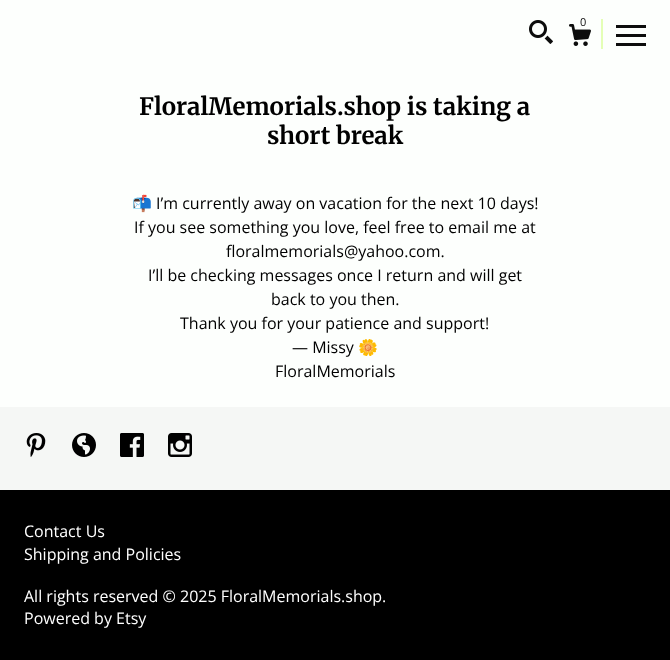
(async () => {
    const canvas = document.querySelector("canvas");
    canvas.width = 670;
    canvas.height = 660;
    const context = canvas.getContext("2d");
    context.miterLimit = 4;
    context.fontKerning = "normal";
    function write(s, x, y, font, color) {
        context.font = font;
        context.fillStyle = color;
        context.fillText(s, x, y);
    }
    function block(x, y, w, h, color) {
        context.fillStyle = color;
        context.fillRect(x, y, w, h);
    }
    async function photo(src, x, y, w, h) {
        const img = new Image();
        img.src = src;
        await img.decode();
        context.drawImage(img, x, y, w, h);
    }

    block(0, 0, 670, 660, "rgb(253, 255, 253)");
    await photo("media/1.png", 529, 20, 24, 24);
    await photo("media/2.png", 569, 24, 22, 22);
    write("0", 580, 26, "11px Open Sans", "rgb(13, 13, 13)");
    block(601, 19, 2, 30, "rgb(228, 255, 182)");
    block(616, 25, 30, 3, "rgb(13, 13, 13)");
    block(616, 34, 30, 3, "rgb(13, 13, 13)");
    block(616, 43, 30, 3, "rgb(13, 13, 13)");
    write("FloralMemorials.shop is taking a", 139, 115, "bold 24px Merriweather", "rgb(0, 0, 0)");
    write("short break", 267, 144, "bold 24px Merriweather", "rgb(0, 0, 0)");
    write("📬", 132, 209, "16px Noto Color Emoji", "rgb(0, 0, 0)");
    write("I’m currently away on vacation for the next 10 days!", 156, 209, "16px Open Sans", "rgb(0, 0, 0)");
    write("If you see something you love, feel free to email me at", 134, 233, "16px Open Sans", "rgb(0, 0, 0)");
    write("floralmemorials@yahoo.com.", 226, 257, "16px Open Sans", "rgb(0, 0, 0)");
    write("I’ll be checking messages once I return and will get", 148, 281, "16px Open Sans", "rgb(0, 0, 0)");
    write("back to you then.", 271, 305, "16px Open Sans", "rgb(0, 0, 0)");
    write("Thank you for your patience and support!", 180, 329, "16px Open Sans", "rgb(0, 0, 0)");
    write("— Missy", 292, 353, "16px Open Sans", "rgb(0, 0, 0)");
    write("🌼", 358, 353, "16px Noto Color Emoji", "rgb(0, 0, 0)");
    write("FloralMemorials", 275, 377, "16px Open Sans", "rgb(0, 0, 0)");
    block(0, 407, 670, 83, "rgb(245, 247, 245)");
    await photo("media/3.png", 26, 433, 20, 24);
    await photo("media/4.png", 72, 433, 24, 24);
    await photo("media/5.png", 120, 433, 24, 24);
    await photo("media/6.png", 168, 433, 24, 24);
    block(0, 490, 670, 170, "rgb(0, 0, 0)");
    write("Contact Us", 24, 537, "16px Open Sans", "rgb(255, 255, 255)");
    write("Shipping and Policies", 24, 560, "16px Open Sans", "rgb(255, 255, 255)");
    write("All rights reserved © 2025 FloralMemorials.shop.", 24, 602, "16px Open Sans", "rgb(255, 255, 255)");
    write("Powered by Etsy", 24, 624, "16px Open Sans", "rgb(255, 255, 255)");
})();
